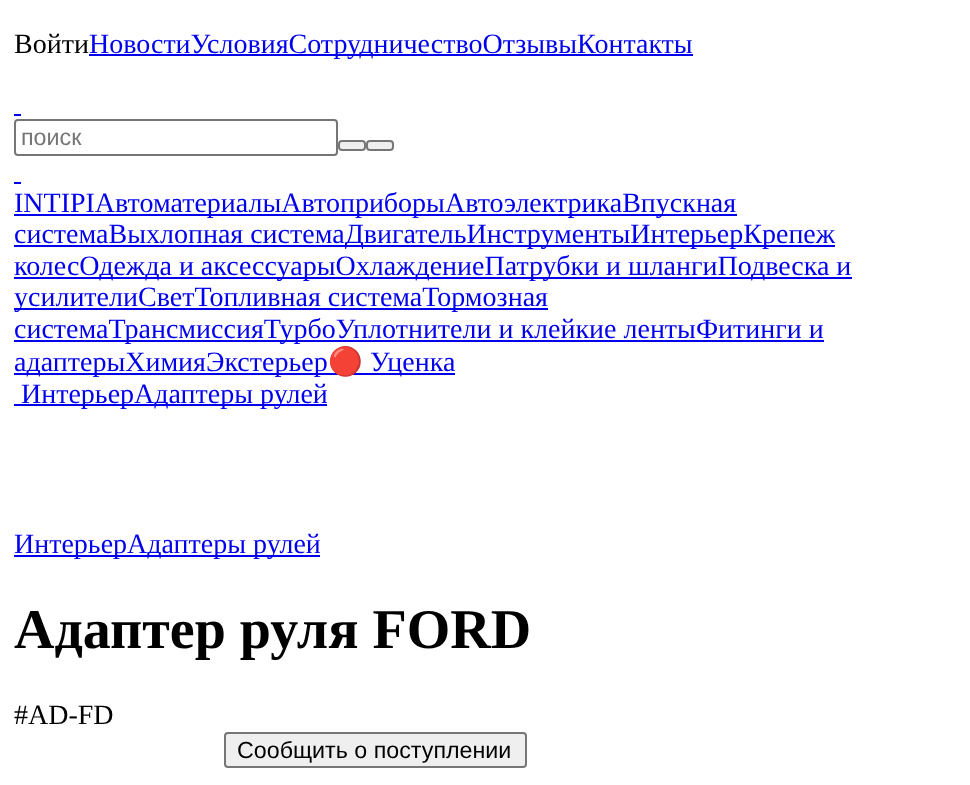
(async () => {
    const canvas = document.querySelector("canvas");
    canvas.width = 970;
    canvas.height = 785;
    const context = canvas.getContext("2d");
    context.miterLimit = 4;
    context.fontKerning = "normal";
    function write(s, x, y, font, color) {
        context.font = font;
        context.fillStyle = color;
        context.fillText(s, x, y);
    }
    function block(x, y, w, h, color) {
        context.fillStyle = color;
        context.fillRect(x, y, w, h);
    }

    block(0, 0, 970, 785, "rgb(255, 255, 255)");
    write("Войти", 14, 53, "28px Liberation Serif", "rgb(0, 0, 0)");
    block(89, 54, 604, 2, "rgb(0, 0, 238)");
    write("НовостиУсловияСотрудничествоОтзывыКонтакты", 89, 53, "28px Liberation Serif", "rgb(0, 0, 238)");
    block(14, 114, 7, 2, "rgb(0, 0, 238)");
    context.beginPath();
    context.roundRect(15, 120, 322, 35, 3);
    context.strokeStyle = "rgb(118, 118, 118)";
    context.lineWidth = 2;
    context.stroke();
    write("поиск", 21, 145, "23.25px Liberation Sans", "rgb(117, 117, 117)");
    context.fillStyle = "rgb(239, 239, 239)";
    context.beginPath();
    context.roundRect(339, 141, 26, 9, 3);
    context.fill();
    context.stroke();
    context.beginPath();
    context.roundRect(367, 141, 26, 9, 3);
    context.fill();
    context.stroke();
    block(14, 182, 7, 2, "rgb(0, 0, 238)");
    block(14, 214, 723, 2, "rgb(0, 0, 238)");
    write("INTIPIАвтоматериалыАвтоприборыАвтоэлектрикаВпускная", 14, 212, "28px Liberation Serif", "rgb(0, 0, 238)");
    block(14, 245, 821, 2, "rgb(0, 0, 238)");
    write("системаВыхлопная системаДвигательИнструментыИнтерьерКрепеж", 14, 243, "28px Liberation Serif", "rgb(0, 0, 238)");
    block(14, 277, 838, 2, "rgb(0, 0, 238)");
    write("колесОдежда и аксессуарыОхлаждениеПатрубки и шлангиПодвеска и", 14, 275, "28px Liberation Serif", "rgb(0, 0, 238)");
    block(14, 308, 534, 2, "rgb(0, 0, 238)");
    write("усилителиСветТопливная системаТормозная", 14, 306, "28px Liberation Serif", "rgb(0, 0, 238)");
    block(14, 340, 810, 2, "rgb(0, 0, 238)");
    write("системаТрансмиссияТурбоУплотнители и клейкие лентыФитинги и", 14, 338, "28px Liberation Serif", "rgb(0, 0, 238)");
    block(14, 373, 441, 2, "rgb(0, 0, 238)");
    write("адаптерыХимияЭкстерьер", 14, 371, "28px Liberation Serif", "rgb(0, 0, 238)");
    write("🔴", 328, 371, "28px Noto Color Emoji", "rgb(0, 0, 238)");
    write("Уценка", 370, 371, "28px Liberation Serif", "rgb(0, 0, 238)");
    block(14, 404, 313, 2, "rgb(0, 0, 238)");
    write("ИнтерьерАдаптеры рулей", 21, 403, "28px Liberation Serif", "rgb(0, 0, 238)");
    block(14, 555, 306, 2, "rgb(0, 0, 238)");
    write("ИнтерьерАдаптеры рулей", 14, 553, "28px Liberation Serif", "rgb(0, 0, 238)");
    write("Адаптер руля FORD", 14, 648, "bold 56px Liberation Serif", "rgb(0, 0, 0)");
    write("#AD-FD", 14, 724, "28px Liberation Serif", "rgb(0, 0, 0)");
    context.fillStyle = "rgb(239, 239, 239)";
    context.beginPath();
    context.roundRect(225, 733, 301, 34, 3);
    context.fill();
    context.stroke();
    write("Сообщить о поступлении", 237, 758, "23.25px Liberation Sans", "rgb(0, 0, 0)");
})();
